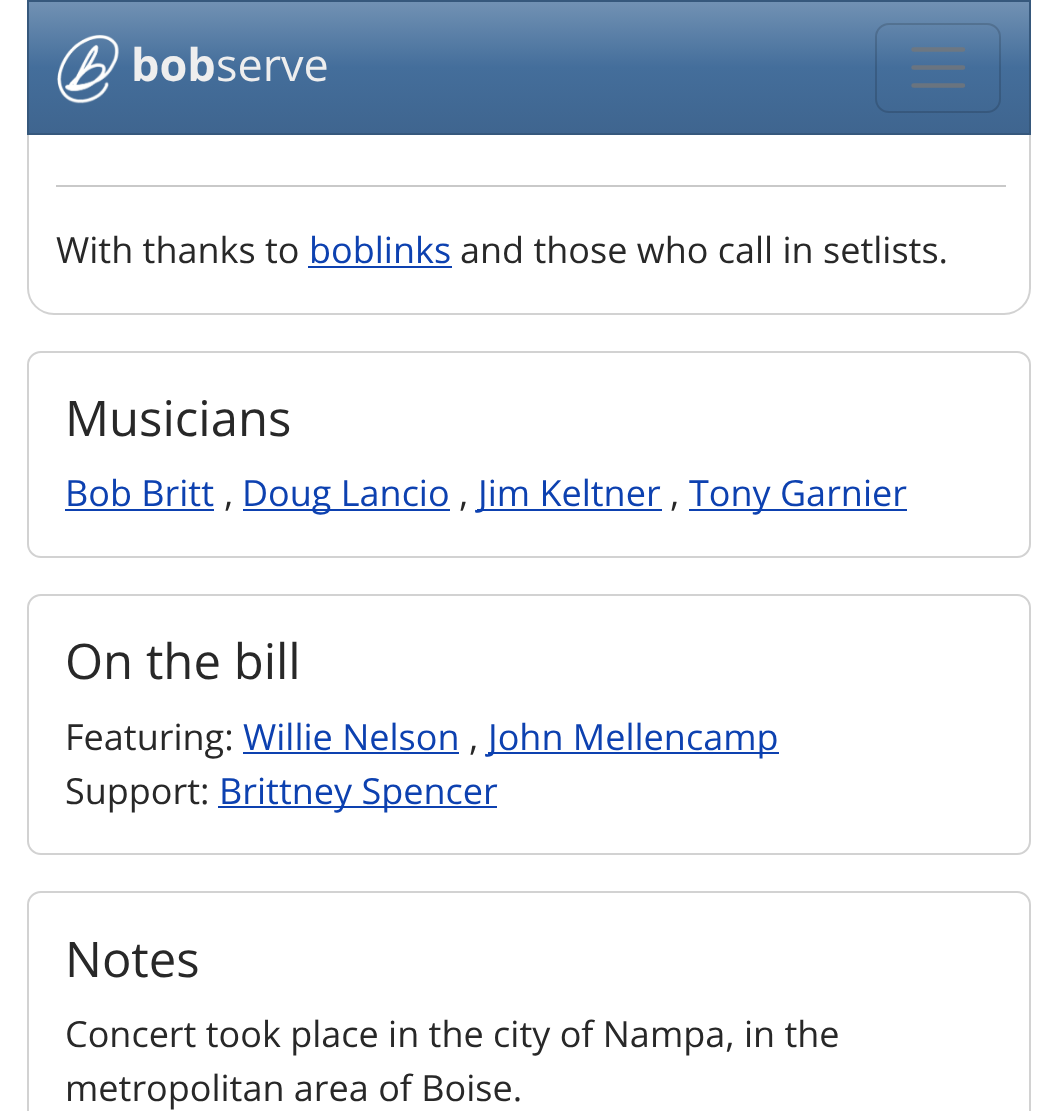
(async () => {
    const canvas = document.querySelector("canvas");
    canvas.width = 1057;
    canvas.height = 1111;
    const context = canvas.getContext("2d");
    context.miterLimit = 4;
    context.fontKerning = "normal";
    function write(s, x, y, font, color) {
        context.font = font;
        context.fillStyle = color;
        context.fillText(s, x, y);
    }
    function block(x, y, w, h, color) {
        context.fillStyle = color;
        context.fillRect(x, y, w, h);
    }
    async function photo(src, x, y, w, h) {
        const img = new Image();
        img.src = src;
        await img.decode();
        context.drawImage(img, x, y, w, h);
    }
    let gradient;

    block(0, 0, 1057, 1111, "rgb(255, 255, 255)");
    context.beginPath();
    context.roundRect(28, -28, 1002, 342, 26);
    context.strokeStyle = "rgb(210, 210, 210)";
    context.lineWidth = 2;
    context.stroke();
    gradient = context.createLinearGradient(529, 2.2, 529, 133);
    gradient.addColorStop(0, "rgb(113, 145, 179)");
    gradient.addColorStop(0.5, "rgb(68, 110, 155)");
    gradient.addColorStop(1, "rgb(63, 101, 143)");
    context.fillStyle = gradient;
    context.fillRect(29, 2, 1000, 131);
    context.strokeStyle = "rgb(54, 88, 124)";
    context.strokeRect(28, 1, 1002, 133);
    await photo("media/1.png", 57, 34, 62, 70);
    write("bob", 131, 81, "bold 45px Open Sans", "rgb(238, 238, 238)");
    write("serve", 216, 81, "45px Open Sans", "rgb(238, 238, 238)");
    context.beginPath();
    context.roundRect(876, 24, 124, 88, 13);
    context.strokeStyle = "rgba(0, 0, 0, 0.15)";
    context.stroke();
    context.beginPath();
    context.moveTo(913.5, 49.5);
    context.lineTo(963, 49.5);
    context.moveTo(913.5, 67.5);
    context.lineTo(963, 67.5);
    context.moveTo(913.5, 85.5);
    context.lineTo(963, 85.5);
    context.strokeStyle = "rgba(119, 119, 119, 0.75)";
    context.lineWidth = 4.5;
    context.lineCap = "round";
    context.stroke();
    block(56, 185, 950, 2, "rgb(201, 201, 201)");
    write("With thanks to", 56, 263, "36px Open Sans", "rgb(40, 40, 40)");
    write("boblinks", 309, 263, "36px Open Sans", "rgb(13, 65, 176)");
    block(308, 266, 144, 2, "rgb(13, 65, 176)");
    write("and those who call in setlists.", 460, 263, "36px Open Sans", "rgb(40, 40, 40)");
    context.beginPath();
    context.roundRect(28, 352, 1002, 205, 13);
    context.strokeStyle = "rgb(210, 210, 210)";
    context.lineWidth = 2;
    context.stroke();
    write("Musicians", 65, 436, "49px Open Sans", "rgb(40, 40, 40)");
    write("Bob Britt", 65, 506, "36px Open Sans", "rgb(13, 65, 176)");
    block(65, 509, 149, 2, "rgb(13, 65, 176)");
    write(",", 224, 506, "36px Open Sans", "rgb(40, 40, 40)");
    block(243, 509, 207, 2, "rgb(13, 65, 176)");
    write("Doug Lancio", 242, 506, "36px Open Sans", "rgb(13, 65, 176)");
    write(",", 459, 506, "36px Open Sans", "rgb(40, 40, 40)");
    block(477, 509, 185, 2, "rgb(13, 65, 176)");
    write("Jim Keltner", 478, 506, "36px Open Sans", "rgb(13, 65, 176)");
    write(",", 670, 506, "36px Open Sans", "rgb(40, 40, 40)");
    block(689, 509, 218, 2, "rgb(13, 65, 176)");
    write("Tony Garnier", 689, 506, "36px Open Sans", "rgb(13, 65, 176)");
    context.beginPath();
    context.roundRect(28, 595, 1002, 259, 13);
    context.stroke();
    write("On the bill", 65, 679, "49px Open Sans", "rgb(40, 40, 40)");
    write("Featuring:", 65, 750, "36px Open Sans", "rgb(40, 40, 40)");
    write("Willie Nelson", 243, 750, "36px Open Sans", "rgb(13, 65, 176)");
    block(243, 752, 216, 2, "rgb(13, 65, 176)");
    write(",", 469, 750, "36px Open Sans", "rgb(40, 40, 40)");
    block(488, 752, 291, 2, "rgb(13, 65, 176)");
    write("John Mellencamp", 488, 750, "36px Open Sans", "rgb(13, 65, 176)");
    write("Support:", 65, 804, "36px Open Sans", "rgb(40, 40, 40)");
    block(218, 806, 279, 2, "rgb(13, 65, 176)");
    write("Brittney Spencer", 219, 804, "36px Open Sans", "rgb(13, 65, 176)");
    context.beginPath();
    context.roundRect(28, 892, 1002, 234, 13);
    context.stroke();
    write("Notes", 65, 977, "49px Open Sans", "rgb(40, 40, 40)");
    write("Concert took place in the city of Nampa, in the", 65, 1047, "36px Open Sans", "rgb(40, 40, 40)");
    write("metropolitan area of Boise.", 65, 1101, "36px Open Sans", "rgb(40, 40, 40)");
})();
